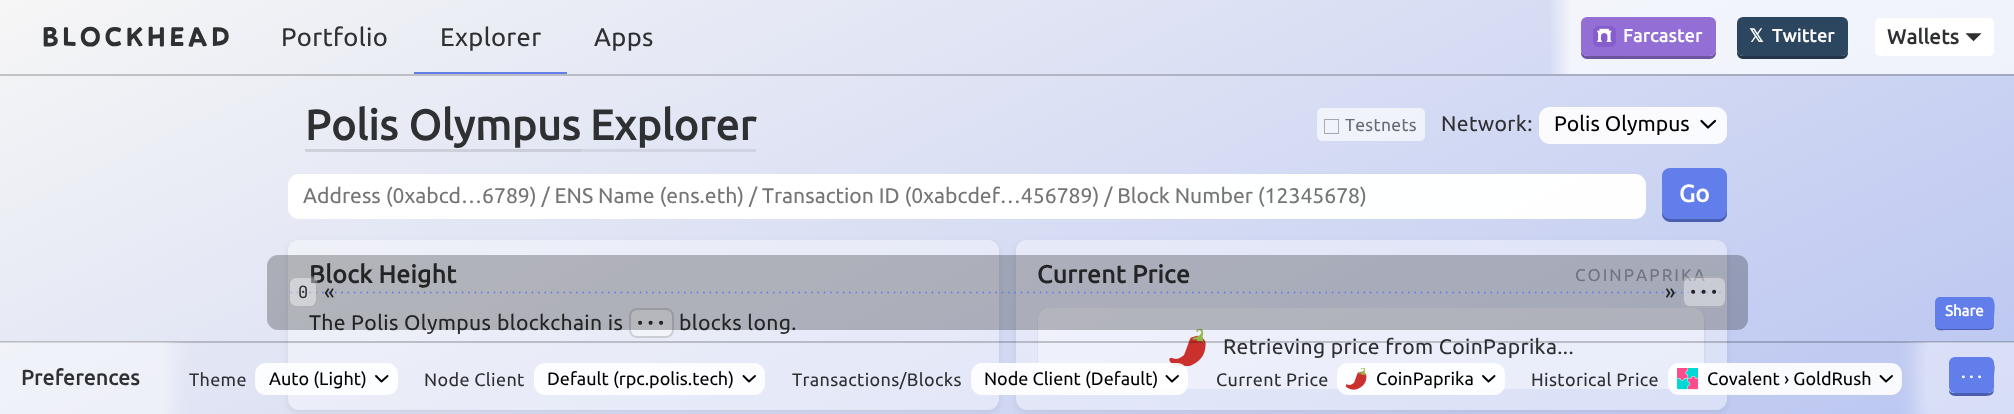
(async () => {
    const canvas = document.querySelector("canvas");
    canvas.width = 2014;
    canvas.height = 414;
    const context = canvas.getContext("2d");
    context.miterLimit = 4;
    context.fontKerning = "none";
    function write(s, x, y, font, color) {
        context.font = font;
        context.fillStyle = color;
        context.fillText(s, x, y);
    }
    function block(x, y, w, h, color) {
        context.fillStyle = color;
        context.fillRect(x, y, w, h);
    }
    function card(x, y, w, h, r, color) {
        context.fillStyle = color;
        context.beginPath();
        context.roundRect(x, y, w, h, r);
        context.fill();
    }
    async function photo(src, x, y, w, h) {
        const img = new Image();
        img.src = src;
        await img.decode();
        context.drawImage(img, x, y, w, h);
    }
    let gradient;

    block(0, 0, 2014, 414, "rgb(255, 255, 255)");
    gradient = context.createLinearGradient(748, -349, 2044, 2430);
    gradient.addColorStop(0, "rgb(246, 246, 246)");
    gradient.addColorStop(1, "rgb(98, 126, 234)");
    context.fillStyle = gradient;
    context.fillRect(0, 0, 2014, 414);
    gradient = context.createLinearGradient(748, -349, 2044, 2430);
    gradient.addColorStop(0, "rgb(197, 197, 197)");
    gradient.addColorStop(1, "rgb(78, 101, 187)");
    context.fillStyle = gradient;
    context.fillRect(0, 74, 2014, 2);
    gradient = context.createLinearGradient(748, -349, 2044, 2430);
    gradient.addColorStop(0, "rgb(218, 218, 218)");
    gradient.addColorStop(1, "rgb(92, 115, 208)");
    context.fillStyle = gradient;
    context.fillRect(305, 149, 276, 3);
    gradient = context.createLinearGradient(748, -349, 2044, 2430);
    gradient.addColorStop(0, "rgb(227, 227, 227)");
    gradient.addColorStop(1, "rgb(94, 118, 216)");
    context.fillStyle = gradient;
    context.fillRect(591, 149, 165, 3);
    context.letterSpacing = "4px";
    write("BLOCKHEAD", 42, 46, "bold 28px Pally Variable", "rgb(47, 48, 50)");
    context.letterSpacing = "0.35px";
    write("Portfolio", 281, 46, "25.5px Ubuntu", "rgb(47, 48, 50)");
    write("Explorer", 440, 46, "25.5px Ubuntu", "rgb(47, 48, 50)");
    block(414, 72, 153, 2, "rgb(98, 126, 234)");
    write("Apps", 594, 46, "25.5px Ubuntu", "rgb(47, 48, 50)");
    gradient = context.createLinearGradient(1548, 37, 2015, 37);
    gradient.addColorStop(0, "rgba(255, 255, 255, 0)");
    gradient.addColorStop(0.05, "rgba(255, 255, 255, 0.72)");
    context.fillStyle = gradient;
    context.fillRect(1550, 0, 464, 74);
    context.fillStyle = "rgb(147, 111, 213)";
    context.beginPath();
    context.moveTo(1581, 50);
    context.lineTo(1581, 53);
    context.bezierCurveTo(1581, 56, 1584, 59, 1587, 59);
    context.lineTo(1710, 59);
    context.bezierCurveTo(1713, 59, 1716, 56, 1716, 53);
    context.lineTo(1716, 50);
    context.bezierCurveTo(1716, 53, 1713, 56, 1710, 56);
    context.lineTo(1587, 56);
    context.bezierCurveTo(1584, 56, 1581, 53, 1581, 50);
    context.closePath();
    context.fill();
    context.fillStyle = "rgba(0, 0, 0, 0.25)";
    context.beginPath();
    context.moveTo(1581, 50);
    context.lineTo(1581, 53);
    context.bezierCurveTo(1581, 56, 1584, 59, 1587, 59);
    context.lineTo(1710, 59);
    context.bezierCurveTo(1713, 59, 1716, 56, 1716, 53);
    context.lineTo(1716, 50);
    context.bezierCurveTo(1716, 53, 1713, 56, 1710, 56);
    context.lineTo(1587, 56);
    context.bezierCurveTo(1584, 56, 1581, 53, 1581, 50);
    context.closePath();
    context.fill();
    card(1581, 17, 135, 39, 6, "rgb(147, 111, 213)");
    await photo("media/1.png", 1593, 26, 23, 21);
    write("Farcaster", 1623, 42, "bold 18px Ubuntu", "rgb(255, 255, 255)");
    context.fillStyle = "rgb(44, 70, 96)";
    context.beginPath();
    context.moveTo(1737, 50);
    context.lineTo(1737, 53);
    context.bezierCurveTo(1737, 56, 1740, 59, 1743, 59);
    context.lineTo(1842, 59);
    context.bezierCurveTo(1845, 59, 1848, 56, 1848, 53);
    context.lineTo(1848, 50);
    context.bezierCurveTo(1848, 53, 1845, 56, 1842, 56);
    context.lineTo(1743, 56);
    context.bezierCurveTo(1740, 56, 1737, 53, 1737, 50);
    context.closePath();
    context.fill();
    context.fillStyle = "rgba(0, 0, 0, 0.25)";
    context.beginPath();
    context.moveTo(1737, 50);
    context.lineTo(1737, 53);
    context.bezierCurveTo(1737, 56, 1740, 59, 1743, 59);
    context.lineTo(1842, 59);
    context.bezierCurveTo(1845, 59, 1848, 56, 1848, 53);
    context.lineTo(1848, 50);
    context.bezierCurveTo(1848, 53, 1845, 56, 1842, 56);
    context.lineTo(1743, 56);
    context.bezierCurveTo(1740, 56, 1737, 53, 1737, 50);
    context.closePath();
    context.fill();
    card(1737, 17, 111, 39, 6, "rgb(44, 70, 96)");
    write("𝕏", 1749, 42, "bold 18px DejaVu Sans", "rgb(255, 255, 255)");
    write("Twitter", 1772, 42, "bold 18px Ubuntu", "rgb(255, 255, 255)");
    card(1875, 18, 119, 38, 5, "rgb(255, 255, 255)");
    write("Wallets", 1887, 44, "bold 20.5px Ubuntu", "rgb(47, 48, 50)");
    write("⏷", 1965, 44, "bold 20.5px FreeSans", "rgb(47, 48, 50)");
    write("Polis Olympus", 305, 140, "bold 42.25px Ubuntu", "rgb(47, 48, 50)");
    write("Explorer", 590, 140, "bold 42.25px Ubuntu", "rgb(47, 48, 50)");
    block(581, 149, 10, 3, "rgb(210, 213, 226)");
    card(1317, 108, 108, 33, 5, "rgba(255, 255, 255, 0.66)");
    write("□", 1324, 134, "25px Liberation Sans", "rgb(163, 166, 181)");
    write("Testnets", 1345, 131, "17.5px Ubuntu", "rgb(106, 108, 117)");
    write("Network:", 1441, 131, "21.15px Ubuntu", "rgb(47, 48, 50)");
    card(1539, 107, 188, 37, 11, "rgba(255, 255, 255, 0.9)");
    context.beginPath();
    context.moveTo(1701.5, 121);
    context.lineTo(1708, 127.5);
    context.lineTo(1715, 121);
    context.strokeStyle = "rgb(0, 0, 0)";
    context.lineWidth = 2.2;
    context.lineCap = "round";
    context.lineJoin = "round";
    context.stroke();
    context.letterSpacing = "0px";
    write("Polis Olympus", 1554, 131, "21.15px Ubuntu", "rgb(0, 0, 0)");
    card(288, 174, 1358, 45, 11, "rgba(255, 255, 255, 0.98)");
    write("Address (0xabcd…6789) / ENS Name (ens.eth) / Transaction ID (0xabcdef…456789) / Block Number (12345678)", 303, 203, "21.15px Ubuntu", "rgb(117, 117, 117)");
    context.fillStyle = "rgb(98, 126, 234)";
    context.beginPath();
    context.moveTo(1662, 210);
    context.lineTo(1662, 214);
    context.bezierCurveTo(1662, 218, 1666, 222, 1670, 222);
    context.lineTo(1719, 222);
    context.bezierCurveTo(1723, 222, 1727, 218, 1727, 214);
    context.lineTo(1727, 179);
    context.lineTo(1726, 176);
    context.lineTo(1726, 210);
    context.bezierCurveTo(1726, 215, 1723, 218, 1718, 218);
    context.lineTo(1670, 218);
    context.bezierCurveTo(1666, 218, 1662, 215, 1662, 210);
    context.closePath();
    context.fill();
    context.fillStyle = "rgba(0, 0, 0, 0.25)";
    context.beginPath();
    context.moveTo(1662, 210);
    context.lineTo(1662, 214);
    context.bezierCurveTo(1662, 218, 1666, 222, 1670, 222);
    context.lineTo(1719, 222);
    context.bezierCurveTo(1723, 222, 1727, 218, 1727, 214);
    context.lineTo(1727, 179);
    context.lineTo(1726, 176);
    context.lineTo(1726, 210);
    context.bezierCurveTo(1726, 215, 1723, 218, 1718, 218);
    context.lineTo(1670, 218);
    context.bezierCurveTo(1666, 218, 1662, 215, 1662, 210);
    context.closePath();
    context.fill();
    card(1662, 168, 65, 51, 8, "rgb(98, 126, 234)");
    write("Go", 1679, 202, "bold 24px Ubuntu", "rgb(255, 255, 255)");
    context.save();
    context.beginPath();
    context.moveTo(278, 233);
    context.lineTo(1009, 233);
    context.lineTo(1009, 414);
    context.lineTo(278, 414);
    context.closePath();
    context.moveTo(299, 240);
    context.lineTo(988, 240);
    context.bezierCurveTo(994, 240, 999, 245, 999, 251);
    context.lineTo(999, 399);
    context.bezierCurveTo(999, 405, 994, 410, 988, 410);
    context.lineTo(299, 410);
    context.bezierCurveTo(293, 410, 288, 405, 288, 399);
    context.lineTo(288, 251);
    context.bezierCurveTo(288, 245, 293, 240, 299, 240);
    context.closePath();
    context.clip("evenodd");
    context.fillStyle = "rgba(0, 0, 0, 0.07)";
    context.filter = "blur(3px)";
    context.beginPath();
    context.roundRect(288, 243, 711, 170, 11);
    context.fill();
    context.filter = "none";
    context.restore();
    card(288, 240, 711, 170, 11, "rgba(255, 255, 255, 0.4)");
    context.letterSpacing = "0.35px";
    write("Block Height", 309, 283, "bold 24.75px Ubuntu", "rgb(47, 48, 50)");
    write("The Polis Olympus", 309, 330, "21.15px Ubuntu", "rgb(47, 48, 50)");
    write("blockchain is", 497, 330, "21.15px Ubuntu", "rgb(47, 48, 50)");
    card(629, 308, 45, 30, 8, "rgb(242, 244, 251)");
    context.beginPath();
    context.roundRect(630, 309, 43, 28, 7);
    context.strokeStyle = "rgba(0, 0, 0, 0.15)";
    context.lineWidth = 2;
    context.lineJoin = "miter";
    context.stroke();
    write("•••", 635, 329, "17px JetBrains Mono", "rgb(47, 48, 50)");
    write("blocks long.", 679, 330, "21.15px Ubuntu", "rgb(47, 48, 50)");
    context.save();
    context.beginPath();
    context.moveTo(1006, 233);
    context.lineTo(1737, 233);
    context.lineTo(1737, 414);
    context.lineTo(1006, 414);
    context.closePath();
    context.moveTo(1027, 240);
    context.lineTo(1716, 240);
    context.bezierCurveTo(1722, 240, 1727, 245, 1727, 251);
    context.lineTo(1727, 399);
    context.bezierCurveTo(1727, 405, 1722, 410, 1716, 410);
    context.lineTo(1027, 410);
    context.bezierCurveTo(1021, 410, 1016, 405, 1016, 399);
    context.lineTo(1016, 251);
    context.bezierCurveTo(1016, 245, 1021, 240, 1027, 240);
    context.closePath();
    context.clip("evenodd");
    context.fillStyle = "rgba(0, 0, 0, 0.07)";
    context.filter = "blur(3px)";
    context.beginPath();
    context.roundRect(1016, 243, 711, 170, 11);
    context.fill();
    context.filter = "none";
    context.restore();
    card(1016, 240, 711, 170, 11, "rgba(255, 255, 255, 0.4)");
    write("Current Price", 1037, 283, "bold 24.75px Ubuntu", "rgb(47, 48, 50)");
    context.letterSpacing = "2px";
    write("COINPAPRIKA", 1575, 281, "17px Ubuntu", "rgb(151, 154, 168)");
    context.save();
    context.beginPath();
    context.rect(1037, 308, 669, 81);
    context.clip();
    context.beginPath();
    context.moveTo(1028, 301);
    context.lineTo(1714, 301);
    context.lineTo(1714, 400);
    context.lineTo(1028, 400);
    context.closePath();
    context.moveTo(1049, 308);
    context.lineTo(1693, 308);
    context.bezierCurveTo(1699, 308, 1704, 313, 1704, 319);
    context.lineTo(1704, 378);
    context.bezierCurveTo(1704, 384, 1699, 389, 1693, 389);
    context.lineTo(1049, 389);
    context.bezierCurveTo(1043, 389, 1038, 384, 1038, 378);
    context.lineTo(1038, 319);
    context.bezierCurveTo(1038, 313, 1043, 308, 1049, 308);
    context.closePath();
    context.clip("evenodd");
    context.fillStyle = "rgba(0, 0, 0, 0.07)";
    context.filter = "blur(3px)";
    context.beginPath();
    context.roundRect(1038, 311, 666, 79, 11);
    context.fill();
    context.filter = "none";
    context.restore();
    card(1038, 308, 666, 81, 11, "rgba(255, 255, 255, 0.4)");
    await photo("media/2.png", 1169, 329, 37, 37);
    context.letterSpacing = "0.35px";
    write("Retrieving price from CoinPaprika...", 1223, 354, "21.1px Ubuntu", "rgb(47, 48, 50)");
    card(267, 255, 1481, 75, 11, "rgba(0, 0, 0, 0.25)");
    context.beginPath();
    context.moveTo(291.2, 292.5);
    context.lineTo(1725.6, 292.5);
    context.strokeStyle = "rgb(98, 126, 234)";
    context.lineWidth = 1.8;
    context.setLineDash([0, 6.35]);
    context.stroke();
    card(288, 276, 30, 32, 8, "rgba(255, 255, 255, 0.4)");
    context.beginPath();
    context.roundRect(289, 277, 28, 30, 7);
    context.strokeStyle = "rgba(0, 0, 0, 0.15)";
    context.lineWidth = 2;
    context.setLineDash([]);
    context.stroke();
    write("0", 298, 298, "17px JetBrains Mono", "rgb(42, 42, 43)");
    write("«", 324, 299, "21.15px Ubuntu", "rgb(35, 36, 38)");
    write("»", 1665, 299, "21.15px Ubuntu", "rgb(35, 36, 38)");
    card(1682, 276, 45, 32, 8, "rgba(255, 255, 255, 0.4)");
    context.beginPath();
    context.roundRect(1683, 277, 43, 30, 7);
    context.stroke();
    write("•••", 1688, 298, "17px JetBrains Mono", "rgb(35, 36, 38)");
    context.fillStyle = "rgb(98, 126, 234)";
    context.beginPath();
    context.moveTo(1935, 323);
    context.bezierCurveTo(1935, 332, 1940, 330, 1948, 330);
    context.lineTo(1981, 330);
    context.bezierCurveTo(1994, 330, 1994, 331, 1994, 318);
    context.bezierCurveTo(1994, 314, 1995, 305, 1994, 302);
    context.lineTo(1994, 323);
    context.bezierCurveTo(1994, 326, 1991, 328, 1989, 328);
    context.lineTo(1940, 328);
    context.bezierCurveTo(1937, 328, 1935, 326, 1935, 323);
    context.closePath();
    context.fill();
    context.fillStyle = "rgba(0, 0, 0, 0.25)";
    context.beginPath();
    context.moveTo(1935, 323);
    context.bezierCurveTo(1935, 332, 1940, 330, 1948, 330);
    context.lineTo(1981, 330);
    context.bezierCurveTo(1994, 330, 1994, 331, 1994, 318);
    context.bezierCurveTo(1994, 314, 1995, 305, 1994, 302);
    context.lineTo(1994, 323);
    context.bezierCurveTo(1994, 326, 1991, 328, 1989, 328);
    context.lineTo(1940, 328);
    context.bezierCurveTo(1937, 328, 1935, 326, 1935, 323);
    context.closePath();
    context.fill();
    card(1935, 297, 59, 32, 5, "rgb(98, 126, 234)");
    context.letterSpacing = "0px";
    write("Share", 1945, 316, "bold 15px Ubuntu", "rgb(255, 255, 255)");
    block(0, 341, 2014, 2, "rgba(0, 0, 0, 0.2)");
    context.save();
    context.beginPath();
    context.rect(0, 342, 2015, 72);
    context.clip();
    context.beginPath();
    context.rect(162, 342, 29, 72);
    context.clip();
    context.fillStyle = "rgba(255, 255, 255, 0.5)";
    context.filter = "blur(10.5px)";
    context.beginPath();
    context.rect(-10, 332, 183, 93);
    context.fill();
    context.filter = "none";
    context.restore();
    block(0, 342, 162, 72, "rgba(255, 255, 255, 0.42)");
    context.letterSpacing = "0.35px";
    write("Preferences", 21, 385, "bold 21px Ubuntu", "rgb(47, 48, 50)");
    write("Theme", 189, 386, "18px Ubuntu", "rgb(47, 48, 50)");
    card(255, 363, 143, 32, 11, "rgba(255, 255, 255, 0.9)");
    context.beginPath();
    context.moveTo(376, 376);
    context.lineTo(381.5, 381.5);
    context.lineTo(387.5, 376);
    context.strokeStyle = "rgb(0, 0, 0)";
    context.lineWidth = 1.9;
    context.lineJoin = "round";
    context.stroke();
    context.letterSpacing = "0px";
    write("Auto (Light)", 269, 385, "18px Ubuntu", "rgb(0, 0, 0)");
    context.letterSpacing = "0.35px";
    write("Node Client", 424, 386, "18px Ubuntu", "rgb(47, 48, 50)");
    card(534, 363, 231, 32, 11, "rgba(255, 255, 255, 0.9)");
    context.beginPath();
    context.moveTo(743.5, 376);
    context.lineTo(749, 381.5);
    context.lineTo(755, 376);
    context.stroke();
    context.letterSpacing = "0px";
    write("Default (rpc.polis.tech)", 547, 385, "18px Ubuntu", "rgb(0, 0, 0)");
    context.letterSpacing = "0.35px";
    write("Transactions/Blocks", 792, 386, "18px Ubuntu", "rgb(47, 48, 50)");
    card(971, 363, 217, 32, 11, "rgba(255, 255, 255, 0.9)");
    context.beginPath();
    context.moveTo(1166.5, 376);
    context.lineTo(1172, 381.5);
    context.lineTo(1178, 376);
    context.stroke();
    context.letterSpacing = "0px";
    write("Node Client (Default)", 984, 385, "18px Ubuntu", "rgb(0, 0, 0)");
    context.letterSpacing = "0.35px";
    write("Current Price", 1216, 386, "18px Ubuntu", "rgb(47, 48, 50)");
    card(1337, 363, 168, 32, 11, "rgba(255, 255, 255, 0.9)");
    await photo("media/3.png", 1346, 368, 21, 22);
    context.beginPath();
    context.moveTo(1483, 376);
    context.lineTo(1488.5, 381.5);
    context.lineTo(1494.5, 376);
    context.stroke();
    context.letterSpacing = "0px";
    write("CoinPaprika", 1376, 385, "18px Ubuntu", "rgb(0, 0, 0)");
    context.letterSpacing = "0.35px";
    write("Historical Price", 1531, 386, "18px Ubuntu", "rgb(47, 48, 50)");
    card(1668, 363, 234, 32, 11, "rgba(255, 255, 255, 0.9)");
    await photo("media/4.png", 1677, 368, 21, 22);
    context.beginPath();
    context.moveTo(1880.5, 376);
    context.lineTo(1886, 381.5);
    context.lineTo(1892, 376);
    context.stroke();
    context.letterSpacing = "0px";
    write("Covalent › GoldRush", 1707, 385, "18px Ubuntu", "rgb(0, 0, 0)");
    context.save();
    context.beginPath();
    context.rect(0, 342, 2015, 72);
    context.clip();
    context.beginPath();
    context.rect(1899, 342, 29, 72);
    context.clip();
    context.fillStyle = "rgba(255, 255, 255, 0.5)";
    context.filter = "blur(10.5px)";
    context.beginPath();
    context.rect(1917, 332, 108, 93);
    context.fill();
    context.filter = "none";
    context.restore();
    block(1928, 342, 86, 72, "rgba(255, 255, 255, 0.42)");
    context.fillStyle = "rgb(98, 126, 234)";
    context.beginPath();
    context.moveTo(1949, 390);
    context.bezierCurveTo(1949, 397, 1956, 396, 1960, 396);
    context.lineTo(1977, 396);
    context.bezierCurveTo(1996, 396, 1994, 396, 1994, 378);
    context.bezierCurveTo(1994, 374, 1995, 367, 1994, 364);
    context.lineTo(1994, 388);
    context.bezierCurveTo(1994, 391, 1991, 393, 1988, 393);
    context.lineTo(1954, 393);
    context.bezierCurveTo(1952, 393, 1950, 392, 1949, 390);
    context.closePath();
    context.fill();
    context.fillStyle = "rgba(0, 0, 0, 0.25)";
    context.beginPath();
    context.moveTo(1949, 390);
    context.bezierCurveTo(1949, 397, 1956, 396, 1960, 396);
    context.lineTo(1977, 396);
    context.bezierCurveTo(1996, 396, 1994, 396, 1994, 378);
    context.bezierCurveTo(1994, 374, 1995, 367, 1994, 364);
    context.lineTo(1994, 388);
    context.bezierCurveTo(1994, 391, 1991, 393, 1988, 393);
    context.lineTo(1954, 393);
    context.bezierCurveTo(1952, 393, 1950, 392, 1949, 390);
    context.closePath();
    context.fill();
    card(1949, 357, 45, 36, 6, "rgb(98, 126, 234)");
    write("· · ·", 1961, 382, "bold 17px Ubuntu", "rgb(255, 255, 255)");
})();
